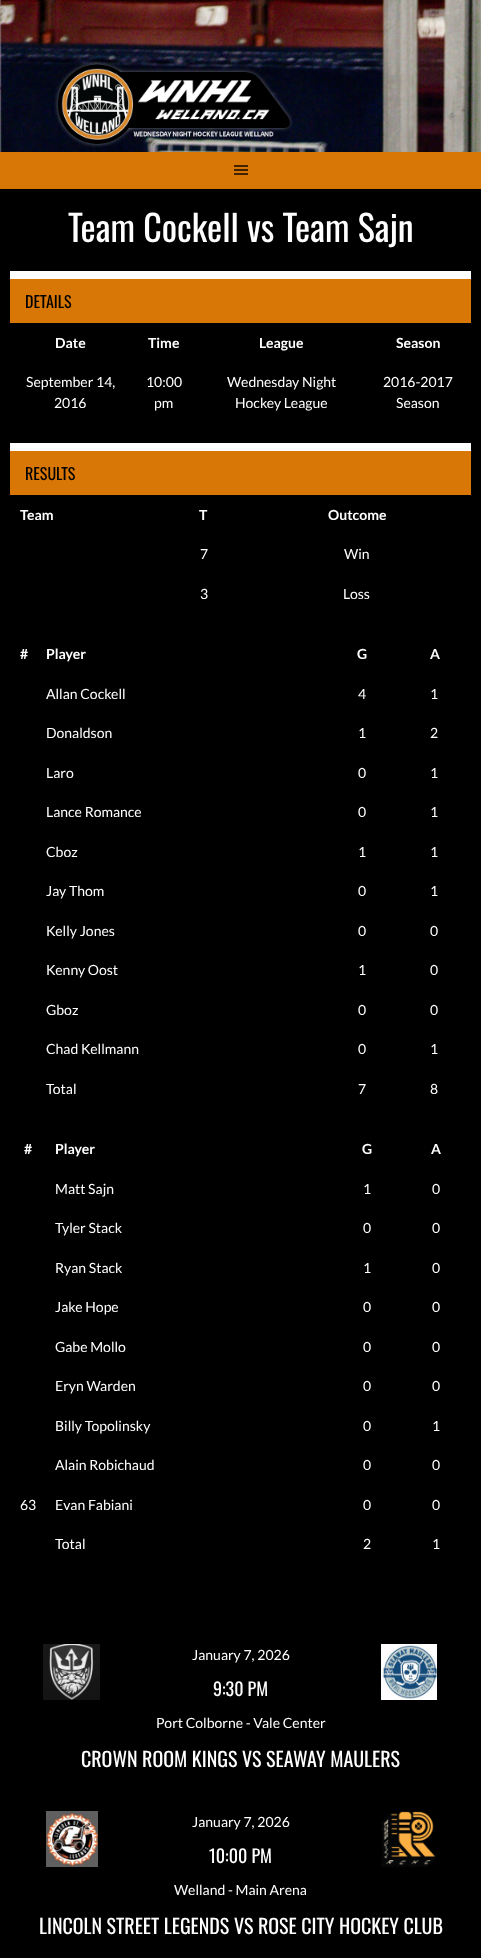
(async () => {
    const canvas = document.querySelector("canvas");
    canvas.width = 481;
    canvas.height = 1958;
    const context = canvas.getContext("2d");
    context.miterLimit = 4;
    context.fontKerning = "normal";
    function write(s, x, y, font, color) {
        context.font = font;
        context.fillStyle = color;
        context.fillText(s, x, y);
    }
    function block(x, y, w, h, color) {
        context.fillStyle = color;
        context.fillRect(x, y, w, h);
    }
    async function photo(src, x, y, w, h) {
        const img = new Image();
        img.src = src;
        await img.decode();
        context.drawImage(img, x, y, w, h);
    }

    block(0, 0, 481, 1958, "rgb(255, 255, 255)");
    await photo("media/1.png", 0, 0, 481, 152);
    await photo("media/2.png", 54, 61, 239, 87);
    block(0, 152, 481, 37, "rgb(216, 118, 6)");
    await photo("media/3.png", 234, 165, 14, 10);
    block(0, 189, 481, 1769, "rgb(0, 0, 0)");
    write("Team Cockell vs Team Sajn", 68, 242, "36px Oswald", "rgb(255, 255, 255)");
    block(10, 279, 461, 44, "rgb(216, 118, 6)");
    block(10, 271, 461, 8, "rgb(255, 255, 255)");
    write("DETAILS", 25, 308, "16px Oswald", "rgb(0, 0, 0)");
    write("Date", 55, 348, "bold 14px Lato", "rgb(255, 255, 255)");
    write("Time", 148, 348, "bold 14px Lato", "rgb(255, 255, 255)");
    write("League", 259, 348, "bold 14px Lato", "rgb(255, 255, 255)");
    write("Season", 396, 348, "bold 14px Lato", "rgb(255, 255, 255)");
    write("September 14,", 26, 387, "14px Lato", "rgb(255, 255, 255)");
    write("2016", 54, 408, "14px Lato", "rgb(255, 255, 255)");
    write("10:00", 146, 387, "14px Lato", "rgb(255, 255, 255)");
    write("pm", 154, 408, "14px Lato", "rgb(255, 255, 255)");
    write("Wednesday Night", 227, 387, "14px Lato", "rgb(255, 255, 255)");
    write("Hockey League", 235, 408, "14px Lato", "rgb(255, 255, 255)");
    write("2016-2017", 383, 387, "14px Lato", "rgb(255, 255, 255)");
    write("Season", 396, 408, "14px Lato", "rgb(255, 255, 255)");
    block(10, 451, 461, 44, "rgb(216, 118, 6)");
    block(10, 443, 461, 8, "rgb(255, 255, 255)");
    write("RESULTS", 25, 480, "16px Oswald", "rgb(0, 0, 0)");
    write("Team", 20, 520, "bold 14px Lato", "rgb(255, 255, 255)");
    write("T", 199, 520, "bold 14px Lato", "rgb(255, 255, 255)");
    write("Outcome", 328, 520, "bold 14px Lato", "rgb(255, 255, 255)");
    write("7", 200, 559, "14px Lato", "rgb(255, 255, 255)");
    write("Win", 344, 559, "14px Lato", "rgb(255, 255, 255)");
    write("3", 200, 599, "14px Lato", "rgb(255, 255, 255)");
    write("Loss", 343, 599, "14px Lato", "rgb(255, 255, 255)");
    write("#", 20, 659, "bold 14px Lato", "rgb(255, 255, 255)");
    write("Player", 46, 659, "bold 14px Lato", "rgb(255, 255, 255)");
    write("G", 357, 659, "bold 14px Lato", "rgb(255, 255, 255)");
    write("A", 430, 659, "bold 14px Lato", "rgb(255, 255, 255)");
    write("Allan Cockell", 46, 699, "14px Lato", "rgb(255, 255, 255)");
    write("4", 358, 699, "14px Lato", "rgb(255, 255, 255)");
    write("1", 430, 699, "14px Lato", "rgb(255, 255, 255)");
    write("Donaldson", 46, 738, "14px Lato", "rgb(255, 255, 255)");
    write("1", 358, 738, "14px Lato", "rgb(255, 255, 255)");
    write("2", 430, 738, "14px Lato", "rgb(255, 255, 255)");
    write("Laro", 46, 778, "14px Lato", "rgb(255, 255, 255)");
    write("0", 358, 778, "14px Lato", "rgb(255, 255, 255)");
    write("1", 430, 778, "14px Lato", "rgb(255, 255, 255)");
    write("Lance Romance", 46, 817, "14px Lato", "rgb(255, 255, 255)");
    write("0", 358, 817, "14px Lato", "rgb(255, 255, 255)");
    write("1", 430, 817, "14px Lato", "rgb(255, 255, 255)");
    write("Cboz", 46, 857, "14px Lato", "rgb(255, 255, 255)");
    write("1", 358, 857, "14px Lato", "rgb(255, 255, 255)");
    write("1", 430, 857, "14px Lato", "rgb(255, 255, 255)");
    write("Jay Thom", 46, 896, "14px Lato", "rgb(255, 255, 255)");
    write("0", 358, 896, "14px Lato", "rgb(255, 255, 255)");
    write("1", 430, 896, "14px Lato", "rgb(255, 255, 255)");
    write("Kelly Jones", 46, 936, "14px Lato", "rgb(255, 255, 255)");
    write("0", 358, 936, "14px Lato", "rgb(255, 255, 255)");
    write("0", 430, 936, "14px Lato", "rgb(255, 255, 255)");
    write("Kenny Oost", 46, 975, "14px Lato", "rgb(255, 255, 255)");
    write("1", 358, 975, "14px Lato", "rgb(255, 255, 255)");
    write("0", 430, 975, "14px Lato", "rgb(255, 255, 255)");
    write("Gboz", 46, 1015, "14px Lato", "rgb(255, 255, 255)");
    write("0", 358, 1015, "14px Lato", "rgb(255, 255, 255)");
    write("0", 430, 1015, "14px Lato", "rgb(255, 255, 255)");
    write("Chad Kellmann", 46, 1054, "14px Lato", "rgb(255, 255, 255)");
    write("0", 358, 1054, "14px Lato", "rgb(255, 255, 255)");
    write("1", 430, 1054, "14px Lato", "rgb(255, 255, 255)");
    write("Total", 46, 1094, "14px Lato", "rgb(255, 255, 255)");
    write("7", 358, 1094, "14px Lato", "rgb(255, 255, 255)");
    write("8", 430, 1094, "14px Lato", "rgb(255, 255, 255)");
    write("#", 24, 1154, "bold 14px Lato", "rgb(255, 255, 255)");
    write("Player", 55, 1154, "bold 14px Lato", "rgb(255, 255, 255)");
    write("G", 362, 1154, "bold 14px Lato", "rgb(255, 255, 255)");
    write("A", 431, 1154, "bold 14px Lato", "rgb(255, 255, 255)");
    write("Matt Sajn", 55, 1194, "14px Lato", "rgb(255, 255, 255)");
    write("1", 363, 1194, "14px Lato", "rgb(255, 255, 255)");
    write("0", 432, 1194, "14px Lato", "rgb(255, 255, 255)");
    write("Tyler Stack", 55, 1233, "14px Lato", "rgb(255, 255, 255)");
    write("0", 363, 1233, "14px Lato", "rgb(255, 255, 255)");
    write("0", 432, 1233, "14px Lato", "rgb(255, 255, 255)");
    write("Ryan Stack", 55, 1273, "14px Lato", "rgb(255, 255, 255)");
    write("1", 363, 1273, "14px Lato", "rgb(255, 255, 255)");
    write("0", 432, 1273, "14px Lato", "rgb(255, 255, 255)");
    write("Jake Hope", 55, 1312, "14px Lato", "rgb(255, 255, 255)");
    write("0", 363, 1312, "14px Lato", "rgb(255, 255, 255)");
    write("0", 432, 1312, "14px Lato", "rgb(255, 255, 255)");
    write("Gabe Mollo", 55, 1352, "14px Lato", "rgb(255, 255, 255)");
    write("0", 363, 1352, "14px Lato", "rgb(255, 255, 255)");
    write("0", 432, 1352, "14px Lato", "rgb(255, 255, 255)");
    write("Eryn Warden", 55, 1391, "14px Lato", "rgb(255, 255, 255)");
    write("0", 363, 1391, "14px Lato", "rgb(255, 255, 255)");
    write("0", 432, 1391, "14px Lato", "rgb(255, 255, 255)");
    write("Billy Topolinsky", 55, 1431, "14px Lato", "rgb(255, 255, 255)");
    write("0", 363, 1431, "14px Lato", "rgb(255, 255, 255)");
    write("1", 432, 1431, "14px Lato", "rgb(255, 255, 255)");
    write("Alain Robichaud", 55, 1470, "14px Lato", "rgb(255, 255, 255)");
    write("0", 363, 1470, "14px Lato", "rgb(255, 255, 255)");
    write("0", 432, 1470, "14px Lato", "rgb(255, 255, 255)");
    write("63", 20, 1510, "14px Lato", "rgb(255, 255, 255)");
    write("Evan Fabiani", 55, 1510, "14px Lato", "rgb(255, 255, 255)");
    write("0", 363, 1510, "14px Lato", "rgb(255, 255, 255)");
    write("0", 432, 1510, "14px Lato", "rgb(255, 255, 255)");
    write("Total", 55, 1549, "14px Lato", "rgb(255, 255, 255)");
    write("2", 363, 1549, "14px Lato", "rgb(255, 255, 255)");
    write("1", 432, 1549, "14px Lato", "rgb(255, 255, 255)");
    await photo("media/4.png", 43, 1644, 57, 56);
    write("January 7, 2026", 192, 1660, "14px Lato", "rgb(255, 255, 255)");
    await photo("media/5.png", 381, 1644, 56, 56);
    write("9:30 PM", 213, 1696, "18px Oswald", "rgb(255, 255, 255)");
    write("Port Colborne - Vale Center", 156, 1728, "14px Lato", "rgb(255, 255, 255)");
    write("CROWN ROOM KINGS VS SEAWAY MAULERS", 81, 1767, "20px Oswald", "rgb(255, 255, 255)");
    await photo("media/6.png", 46, 1811, 52, 56);
    write("January 7, 2026", 192, 1827, "14px Lato", "rgb(255, 255, 255)");
    await photo("media/7.png", 381, 1811, 55, 56);
    write("10:00 PM", 209, 1863, "18px Oswald", "rgb(255, 255, 255)");
    write("Welland - Main Arena", 174, 1895, "14px Lato", "rgb(255, 255, 255)");
    write("LINCOLN STREET LEGENDS VS ROSE CITY HOCKEY CLUB", 39, 1934, "20px Oswald", "rgb(255, 255, 255)");
})();
